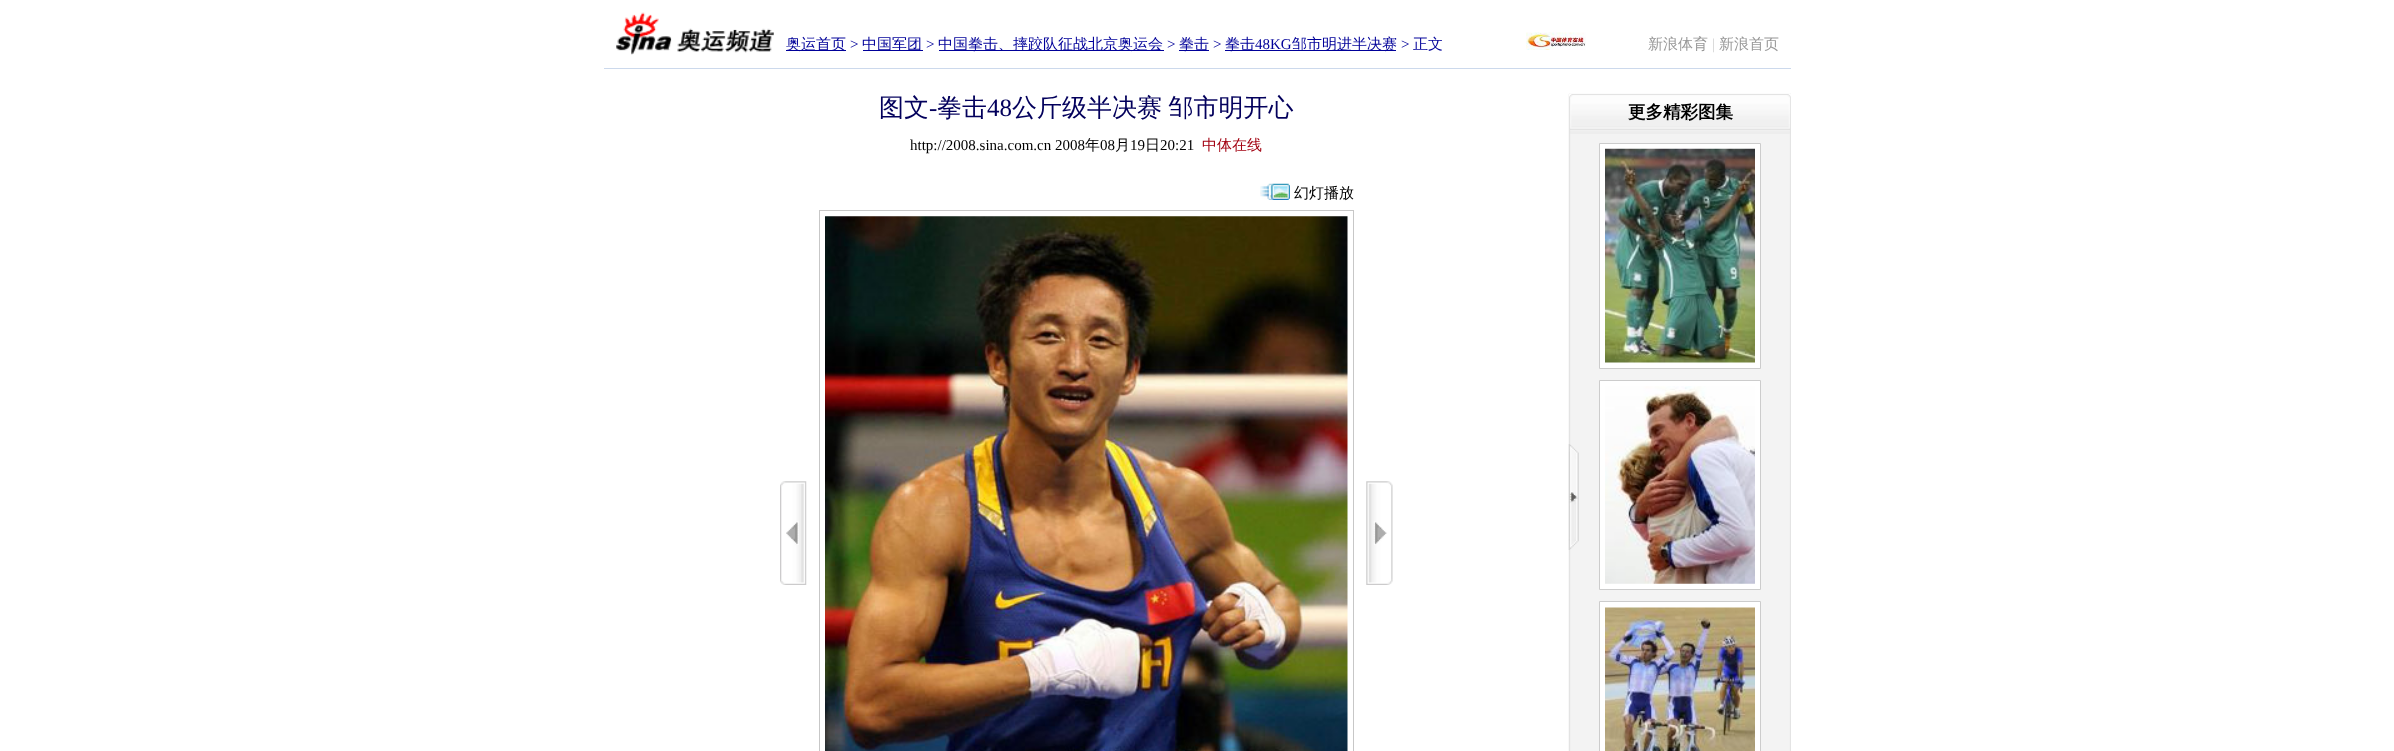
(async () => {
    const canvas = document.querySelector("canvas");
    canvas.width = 2394;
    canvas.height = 751;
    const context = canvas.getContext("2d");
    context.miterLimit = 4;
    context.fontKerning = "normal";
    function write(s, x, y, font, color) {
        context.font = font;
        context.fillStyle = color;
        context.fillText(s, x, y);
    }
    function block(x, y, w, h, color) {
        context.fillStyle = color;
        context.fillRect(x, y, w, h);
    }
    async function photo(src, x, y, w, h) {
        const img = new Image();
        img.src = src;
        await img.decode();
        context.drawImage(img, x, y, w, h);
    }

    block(0, 0, 2394, 751, "rgb(255, 255, 255)");
    block(604, 68, 1187, 1, "rgb(204, 217, 236)");
    await photo("media/1.png", 616, 12, 56, 43);
    await photo("media/2.png", 671, 28, 103, 25);
    block(786, 50, 60, 1, "rgb(0, 0, 153)");
    write("奥运首页", 786, 49, "500 15px WenQuanYi Zen Hei", "rgb(0, 0, 153)");
    write(">", 850, 49, "15px Liberation Serif", "rgb(0, 0, 153)");
    block(863, 50, 60, 1, "rgb(0, 0, 153)");
    write("中国军团", 862, 49, "500 15px WenQuanYi Zen Hei", "rgb(0, 0, 153)");
    write(">", 926, 49, "15px Liberation Serif", "rgb(0, 0, 153)");
    block(939, 50, 225, 1, "rgb(0, 0, 153)");
    write("中国拳击、摔跤队征战北京奥运会", 938, 49, "500 15px WenQuanYi Zen Hei", "rgb(0, 0, 153)");
    write(">", 1167, 49, "15px Liberation Serif", "rgb(0, 0, 153)");
    block(1179, 50, 30, 1, "rgb(0, 0, 153)");
    write("拳击", 1179, 49, "500 15px WenQuanYi Zen Hei", "rgb(0, 0, 153)");
    write(">", 1213, 49, "15px Liberation Serif", "rgb(0, 0, 153)");
    block(1225, 50, 171, 1, "rgb(0, 0, 153)");
    write("拳击", 1225, 49, "500 15px WenQuanYi Zen Hei", "rgb(0, 0, 153)");
    write("48KG", 1255, 49, "15px Liberation Serif", "rgb(0, 0, 153)");
    write("邹市明进半决赛", 1292, 49, "500 15px WenQuanYi Zen Hei", "rgb(0, 0, 153)");
    write(">", 1401, 49, "15px Liberation Serif", "rgb(0, 0, 153)");
    write("正文", 1413, 49, "500 15px WenQuanYi Zen Hei", "rgb(0, 0, 153)");
    await photo("media/3.png", 1526, 32, 60, 18);
    write("新浪体育", 1648, 49, "500 15px WenQuanYi Zen Hei", "rgb(152, 152, 152)");
    write("|", 1712, 49, "15px Liberation Serif", "rgb(209, 209, 209)");
    write("新浪首页", 1719, 49, "500 15px WenQuanYi Zen Hei", "rgb(152, 152, 152)");
    write("图文", 879, 116, "500 25px WenQuanYi Zen Hei", "rgb(3, 0, 92)");
    write("-", 929, 116, "25px Liberation Serif", "rgb(3, 0, 92)");
    write("拳击", 937, 116, "500 25px WenQuanYi Zen Hei", "rgb(3, 0, 92)");
    write("48", 987, 116, "25px Liberation Serif", "rgb(3, 0, 92)");
    context.wordSpacing = "-1px";
    write("公斤级半决赛 邹市明开心", 1012, 116, "500 25px WenQuanYi Zen Hei", "rgb(3, 0, 92)");
    context.wordSpacing = "0px";
    write("http://2008.sina.com.cn 2008", 910, 150, "15px Liberation Serif", "rgb(0, 0, 0)");
    write("年", 1085, 150, "500 15px WenQuanYi Zen Hei", "rgb(0, 0, 0)");
    write("08", 1100, 150, "15px Liberation Serif", "rgb(0, 0, 0)");
    write("月", 1115, 150, "500 15px WenQuanYi Zen Hei", "rgb(0, 0, 0)");
    write("19", 1130, 150, "15px Liberation Serif", "rgb(0, 0, 0)");
    write("日", 1145, 150, "500 15px WenQuanYi Zen Hei", "rgb(0, 0, 0)");
    write("20:21", 1160, 150, "15px Liberation Serif", "rgb(0, 0, 0)");
    write("中体在线", 1202, 150, "500 15px WenQuanYi Zen Hei", "rgb(162, 0, 16)");
    await photo("media/4.png", 1260, 183, 30, 17);
    write("幻灯播放", 1294, 198, "500 15px WenQuanYi Zen Hei", "rgb(0, 0, 0)");
    await photo("media/5.png", 780, 481, 27, 104);
    context.strokeStyle = "rgb(199, 199, 199)";
    context.strokeRect(819.5, 210.5, 534, 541);
    await photo("media/6.png", 825, 216, 523, 535);
    await photo("media/7.png", 1366, 481, 27, 104);
    await photo("media/8.png", 1568, 93, 223, 658);
    await photo("media/9.png", 1569, 94, 222, 40);
    write("更多精彩图集", 1628, 118, "bold 17.5px WenQuanYi Zen Hei", "rgb(0, 0, 0)");
    context.fillStyle = "rgb(255, 255, 255)";
    context.beginPath();
    context.rect(1599.5, 143.5, 161, 225);
    context.fill();
    context.strokeStyle = "rgb(204, 204, 204)";
    context.stroke();
    await photo("media/10.png", 1605, 148, 150, 215);
    context.beginPath();
    context.rect(1599.5, 380.5, 161, 209);
    context.fill();
    context.stroke();
    await photo("media/11.png", 1605, 386, 150, 198);
    context.beginPath();
    context.rect(1599.5, 601.5, 161, 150);
    context.fill();
    context.stroke();
    await photo("media/12.png", 1605, 607, 150, 144);
    await photo("media/13.png", 1568, 444, 11, 106);
})();
